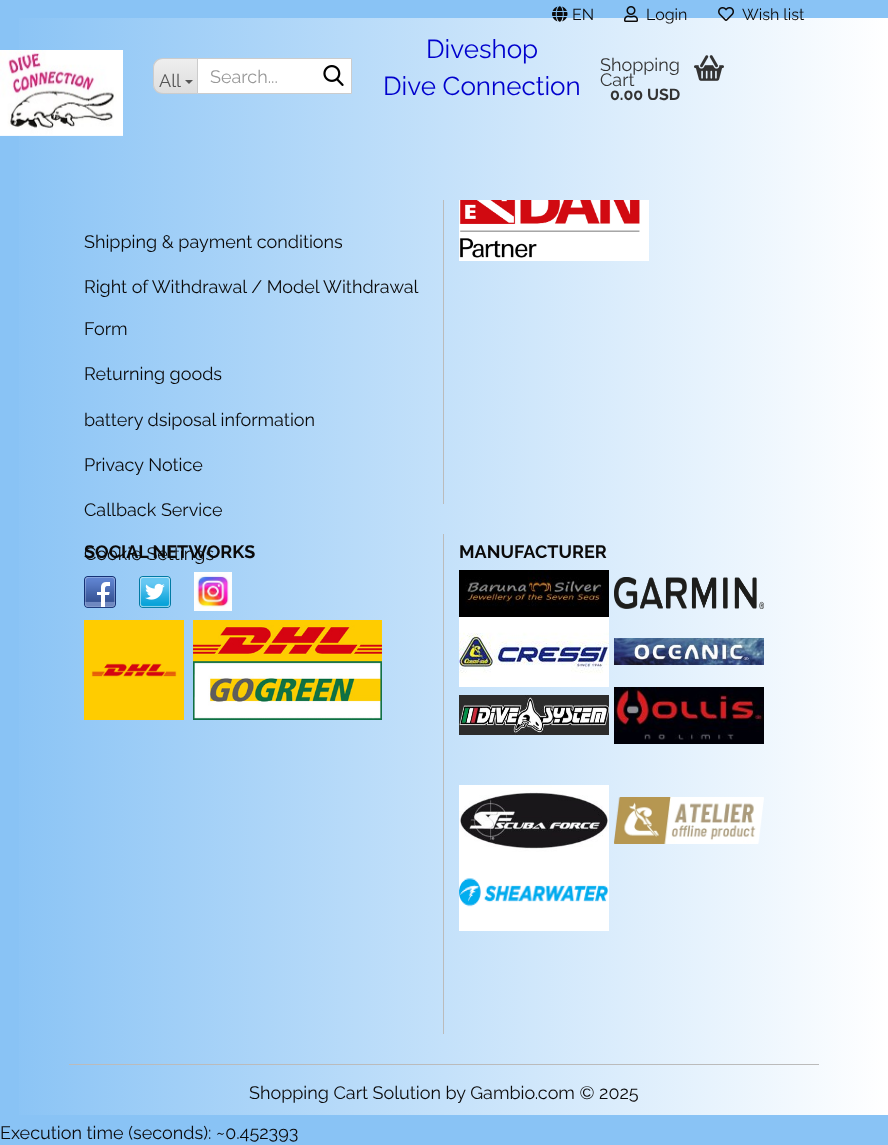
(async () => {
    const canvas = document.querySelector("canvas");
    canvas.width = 888;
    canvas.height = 1145;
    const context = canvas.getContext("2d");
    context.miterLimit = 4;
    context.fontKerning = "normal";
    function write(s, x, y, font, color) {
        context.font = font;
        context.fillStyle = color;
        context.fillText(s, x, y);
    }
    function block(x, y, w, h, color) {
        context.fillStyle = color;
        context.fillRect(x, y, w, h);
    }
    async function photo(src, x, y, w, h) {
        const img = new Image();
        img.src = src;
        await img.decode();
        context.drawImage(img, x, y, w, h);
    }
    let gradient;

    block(0, 0, 888, 1145, "rgb(137, 195, 245)");
    gradient = context.createLinearGradient(0, 100, 888, 100);
    gradient.addColorStop(0, "rgb(137, 195, 245)");
    gradient.addColorStop(1, "rgb(255, 255, 255)");
    context.fillStyle = gradient;
    context.fillRect(19, 18, 869, 182);
    await photo("media/1.png", 552, 6, 16, 16);
    write("EN", 572, 20, "100 16px Raleway", "rgb(11, 10, 10)");
    await photo("media/2.png", 624, 6, 14, 16);
    write("Login", 646, 20, "100 16px Raleway", "rgb(11, 10, 10)");
    await photo("media/3.png", 718, 7, 16, 14);
    write("Wish list", 742, 20, "100 16px Raleway", "rgb(11, 10, 10)");
    await photo("media/4.png", 0, 50, 123, 86);
    context.save();
    context.beginPath();
    context.roundRect(153, 58, 44, 36, [10, 0, 0, 10]);
    context.clip();
    gradient = context.createLinearGradient(176, 59, 176, 93);
    gradient.addColorStop(0, "rgb(238, 238, 238)");
    gradient.addColorStop(1, "rgb(222, 222, 222)");
    context.fillStyle = gradient;
    context.fillRect(153, 59, 44, 34);
    context.restore();
    context.fillStyle = "rgb(204, 204, 204)";
    context.beginPath();
    context.moveTo(163, 58);
    context.lineTo(197, 58);
    context.lineTo(197, 94);
    context.lineTo(163, 94);
    context.bezierCurveTo(157, 94, 153, 90, 153, 84);
    context.lineTo(153, 68);
    context.bezierCurveTo(153, 62, 157, 58, 163, 58);
    context.closePath();
    context.moveTo(163, 59);
    context.lineTo(197, 59);
    context.lineTo(197, 93);
    context.lineTo(163, 93);
    context.bezierCurveTo(158, 93, 154, 89, 154, 84);
    context.lineTo(154, 68);
    context.bezierCurveTo(154, 63, 158, 59, 163, 59);
    context.closePath();
    context.fill("evenodd");
    write("All", 159, 87, "100 18px Raleway", "rgb(85, 85, 85)");
    context.beginPath();
    context.moveTo(185, 80);
    context.lineTo(193, 80);
    context.lineTo(189, 84);
    context.closePath();
    context.fill();
    context.fillStyle = "rgb(255, 255, 255)";
    context.beginPath();
    context.rect(197.5, 58.5, 154, 35);
    context.fill();
    context.strokeStyle = "rgb(204, 204, 204)";
    context.stroke();
    write("Search...", 210, 83, "100 18px Raleway", "rgb(153, 153, 153)");
    await photo("media/5.png", 323, 65, 21, 21);
    write("Diveshop", 426, 58, "100 26px Raleway", "rgb(0, 0, 205)");
    write("Dive Connection", 383, 95, "100 26px Raleway", "rgb(0, 0, 205)");
    write("Shopping", 600, 71, "100 18px Raleway", "rgb(51, 51, 51)");
    write("Cart", 600, 86, "100 18px Raleway", "rgb(51, 51, 51)");
    write("0.00 USD", 610, 100, "100 16px 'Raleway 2'", "rgb(51, 51, 51)");
    await photo("media/6.png", 694, 55, 30, 26);
    gradient = context.createLinearGradient(0, 545, 888, 545);
    gradient.addColorStop(0, "rgb(137, 195, 245)");
    gradient.addColorStop(1, "rgb(255, 255, 255)");
    context.fillStyle = gradient;
    context.fillRect(19, 200, 869, 915);
    block(69, 1064, 750, 1, "rgb(187, 187, 187)");
    block(443, 200, 1, 304, "rgb(187, 187, 187)");
    write("Shipping & payment conditions", 84, 248, "100 18px Raleway", "rgb(11, 10, 10)");
    write("Right of Withdrawal / Model Withdrawal", 84, 293, "100 18px Raleway", "rgb(11, 10, 10)");
    write("Form", 84, 335, "100 18px Raleway", "rgb(11, 10, 10)");
    write("Returning goods", 84, 380, "100 18px Raleway", "rgb(11, 10, 10)");
    write("battery dsiposal information", 84, 426, "100 18px Raleway", "rgb(11, 10, 10)");
    write("Privacy Notice", 84, 471, "100 18px Raleway", "rgb(11, 10, 10)");
    write("Callback Service", 84, 516, "100 18px Raleway", "rgb(11, 10, 10)");
    write("Cookie Settings", 84, 560, "100 18px Raleway", "rgb(11, 10, 10)");
    await photo("media/7.png", 459, 200, 190, 61);
    block(443, 534, 1, 500, "rgb(187, 187, 187)");
    write("SOCIAL NETWORKS", 84, 558, "100 18px 'Raleway 2'", "rgb(11, 10, 10)");
    await photo("media/8.png", 84, 576, 32, 32);
    await photo("media/9.png", 139, 576, 32, 32);
    await photo("media/10.png", 194, 572, 38, 39);
    await photo("media/11.png", 84, 620, 100, 100);
    await photo("media/12.png", 193, 620, 189, 100);
    write("MANUFACTURER", 459, 558, "100 18px 'Raleway 2'", "rgb(11, 10, 10)");
    await photo("media/13.png", 459, 570, 150, 47);
    await photo("media/14.png", 614, 577, 150, 32);
    await photo("media/15.png", 459, 617, 150, 70);
    await photo("media/16.png", 614, 638, 150, 27);
    await photo("media/17.png", 459, 695, 150, 40);
    await photo("media/18.png", 614, 687, 150, 57);
    await photo("media/19.png", 459, 785, 150, 71);
    await photo("media/20.png", 614, 797, 150, 47);
    await photo("media/21.png", 459, 856, 150, 75);
    write("Shopping Cart Solution by Gambio.com © 2025", 249, 1099, "100 18px Raleway", "rgb(11, 10, 10)");
    write("Execution time (seconds): ~0.452393", 0, 1139, "100 18px Raleway", "rgb(11, 10, 10)");
})();
